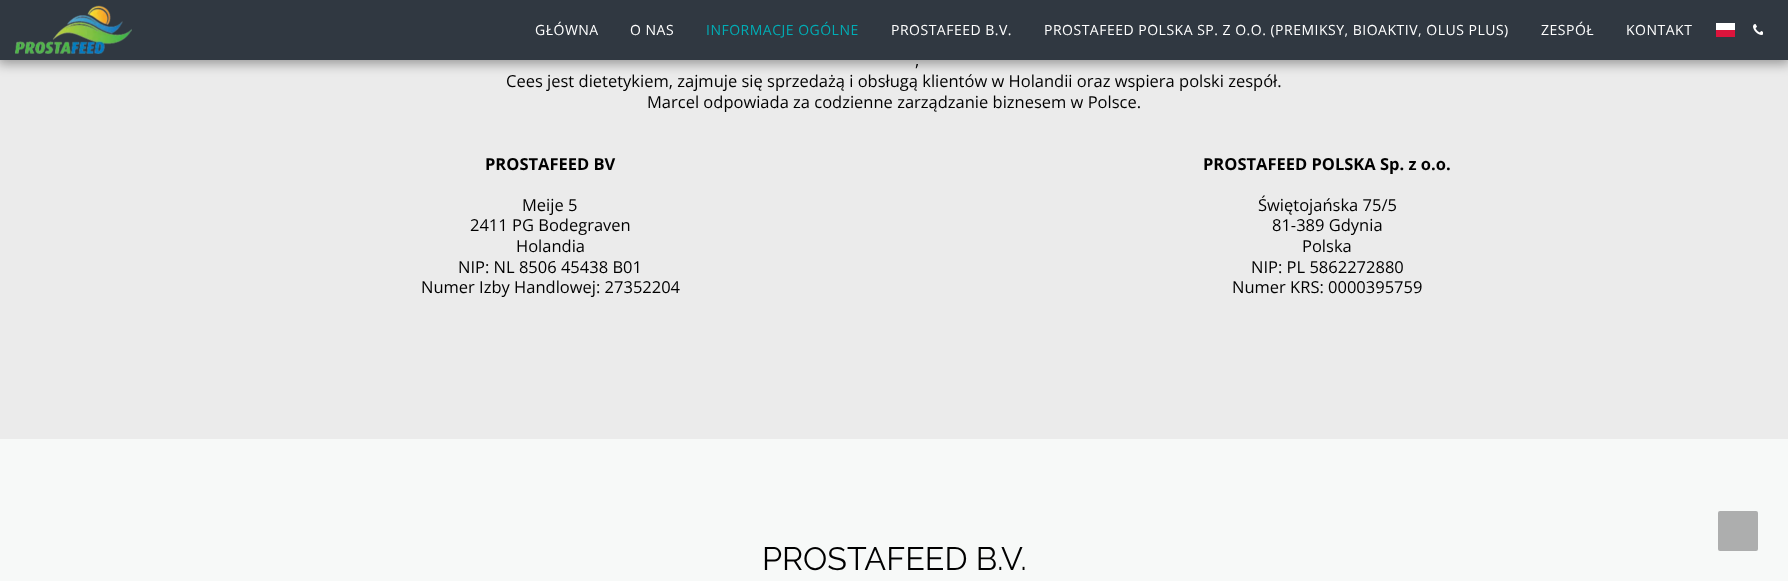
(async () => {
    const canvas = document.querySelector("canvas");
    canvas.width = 1788;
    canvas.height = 581;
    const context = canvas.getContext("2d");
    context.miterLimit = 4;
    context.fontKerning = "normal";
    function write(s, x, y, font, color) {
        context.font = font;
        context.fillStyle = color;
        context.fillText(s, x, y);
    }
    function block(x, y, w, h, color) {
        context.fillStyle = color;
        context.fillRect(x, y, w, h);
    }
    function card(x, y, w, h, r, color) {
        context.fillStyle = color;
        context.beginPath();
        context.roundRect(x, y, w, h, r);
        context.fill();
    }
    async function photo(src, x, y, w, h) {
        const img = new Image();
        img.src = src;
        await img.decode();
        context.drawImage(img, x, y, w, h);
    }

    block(0, 0, 1788, 581, "rgb(247, 249, 248)");
    block(0, 60, 1788, 379, "rgb(235, 235, 235)");
    context.fillStyle = "rgba(0, 0, 0, 0.35)";
    context.filter = "blur(6px)";
    context.beginPath();
    context.rect(-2, 0, 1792, 64);
    context.fill();
    context.filter = "none";
    block(0, 0, 1788, 60, "rgb(48, 56, 65)");
    await photo("media/1.png", 15, 5, 117, 49);
    context.letterSpacing = "0.5px";
    write("GŁÓWNA", 535, 35, "14px Open Sans", "rgb(255, 255, 255)");
    write("O NAS", 630, 35, "14px Open Sans", "rgb(255, 255, 255)");
    write("INFORMACJE OGÓLNE", 706, 35, "14px Open Sans", "rgb(0, 173, 181)");
    write("PROSTAFEED B.V.", 891, 35, "14px Open Sans", "rgb(255, 255, 255)");
    write("PROSTAFEED POLSKA SP. Z O.O. (PREMIKSY, BIOAKTIV, OLUS PLUS)", 1044, 35, "14px Open Sans", "rgb(255, 255, 255)");
    write("ZESPÓŁ", 1541, 35, "14px Open Sans", "rgb(255, 255, 255)");
    write("KONTAKT", 1626, 35, "14px Open Sans", "rgb(255, 255, 255)");
    block(1716, 23, 19, 7, "rgb(255, 255, 255)");
    block(1716, 30, 19, 7, "rgb(220, 20, 60)");
    await photo("media/2.png", 1753, 24, 10, 11);
    context.letterSpacing = "0px";
    write(",", 915, 66, "16.5px Open Sans", "rgb(0, 0, 0)");
    write("Cees jest dietetykiem, zajmuje się sprzedażą i obsługą klientów w Holandii oraz wspiera polski zespół.", 506, 87, "16.5px Open Sans", "rgb(0, 0, 0)");
    write("Marcel odpowiada za codzienne zarządzanie biznesem w Polsce.", 647, 108, "16.5px Open Sans", "rgb(0, 0, 0)");
    write("PROSTAFEED BV", 485, 170, "bold 16.5px Open Sans", "rgb(0, 0, 0)");
    write("Meije 5", 522, 211, "16.5px Open Sans", "rgb(0, 0, 0)");
    write("2411 PG Bodegraven", 470, 231, "16.5px Open Sans", "rgb(0, 0, 0)");
    write("Holandia", 516, 252, "16.5px Open Sans", "rgb(0, 0, 0)");
    write("NIP: NL 8506 45438 B01", 458, 273, "16.5px Open Sans", "rgb(0, 0, 0)");
    write("Numer Izby Handlowej: 27352204", 421, 293, "16.5px Open Sans", "rgb(0, 0, 0)");
    write("PROSTAFEED POLSKA Sp. z o.o.", 1203, 170, "bold 16.5px Open Sans", "rgb(0, 0, 0)");
    write("Świętojańska 75/5", 1258, 211, "16.5px Open Sans", "rgb(0, 0, 0)");
    write("81-389 Gdynia", 1272, 231, "16.5px Open Sans", "rgb(0, 0, 0)");
    write("Polska", 1302, 252, "16.5px Open Sans", "rgb(0, 0, 0)");
    write("NIP: PL 5862272880", 1251, 273, "16.5px Open Sans", "rgb(0, 0, 0)");
    write("Numer KRS: 0000395759", 1232, 293, "16.5px Open Sans", "rgb(0, 0, 0)");
    write("PROSTAFEED B.V.", 762, 570, "32.25px Raleway", "rgb(0, 0, 0)");
    card(1718, 511, 40, 40, 2, "rgb(173, 174, 174)");
})();
